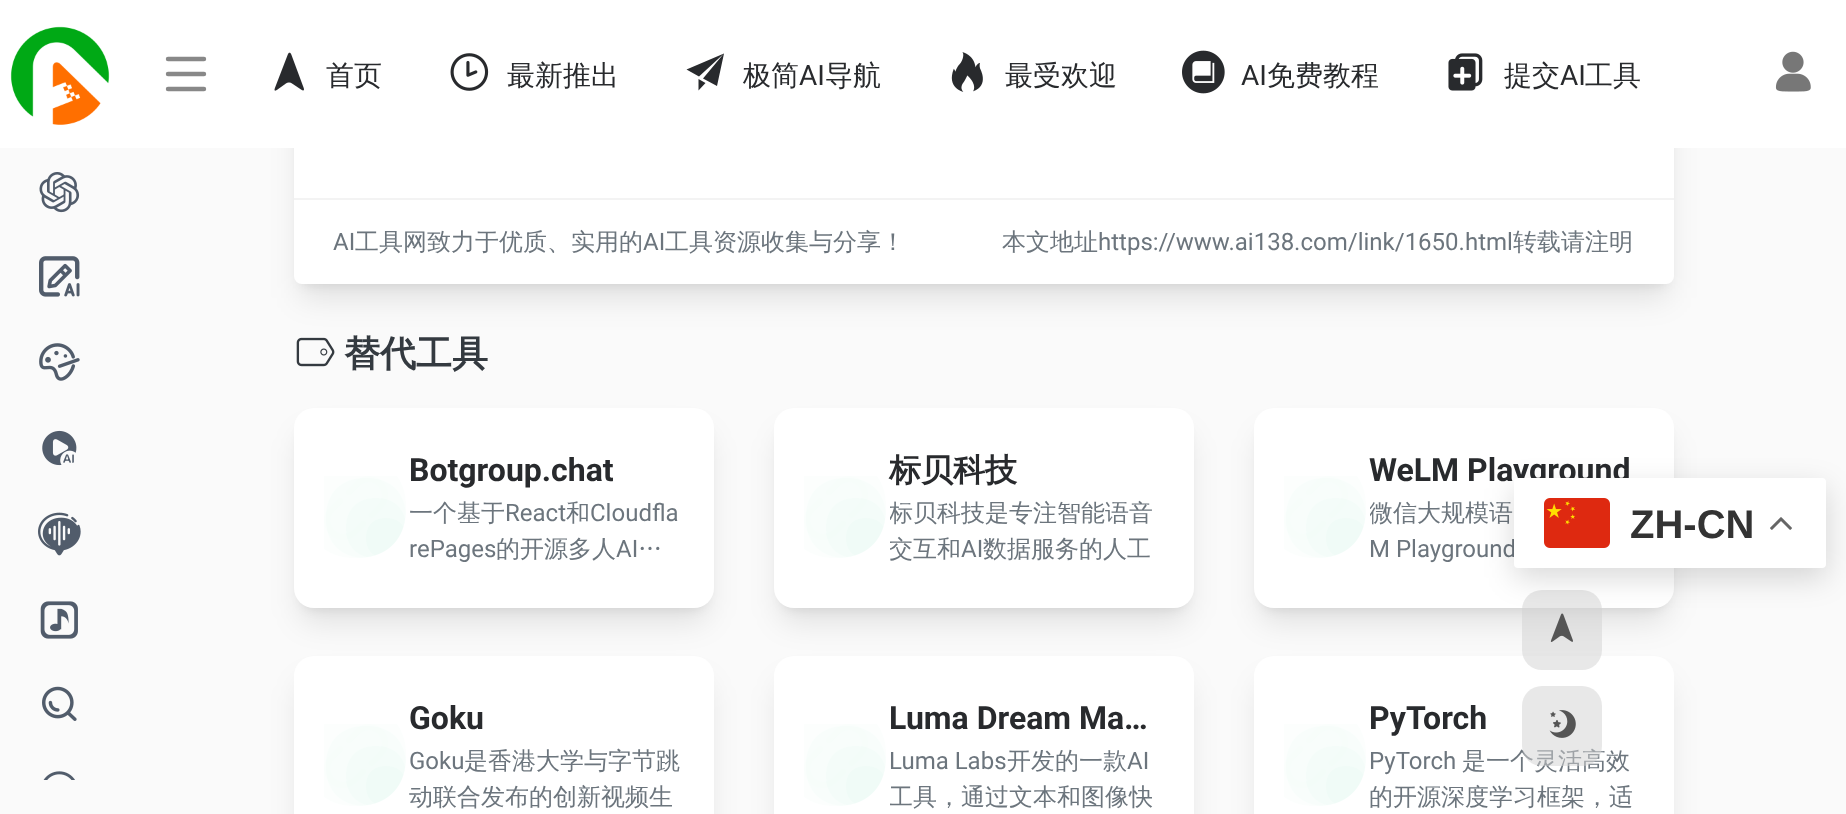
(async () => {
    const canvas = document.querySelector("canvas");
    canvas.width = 1846;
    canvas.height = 814;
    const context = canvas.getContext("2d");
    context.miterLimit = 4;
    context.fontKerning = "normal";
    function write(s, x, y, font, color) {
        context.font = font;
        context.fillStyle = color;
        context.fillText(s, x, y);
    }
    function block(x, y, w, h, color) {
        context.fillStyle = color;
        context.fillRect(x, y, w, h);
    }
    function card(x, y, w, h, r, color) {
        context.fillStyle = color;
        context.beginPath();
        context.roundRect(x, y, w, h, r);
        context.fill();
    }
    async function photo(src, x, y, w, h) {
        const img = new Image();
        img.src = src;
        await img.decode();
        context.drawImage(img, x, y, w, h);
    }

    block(0, 0, 1846, 814, "rgb(250, 250, 250)");
    context.fillStyle = "rgba(0, 0, 0, 0.1)";
    context.filter = "blur(6px)";
    context.beginPath();
    context.rect(302, -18, 1364, 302);
    context.fill();
    context.filter = "none";
    await photo("media/16.png", 296, 337, 39, 30);
    context.filter = "blur(15px)";
    context.beginPath();
    context.roundRect(300, -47, 1368, 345, 2);
    context.fill();
    context.filter = "none";
    card(294, -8, 1380, 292, 8, "rgb(255, 255, 255)");
    block(0, 0, 1846, 148, "rgb(255, 255, 255)");
    await photo("media/1.png", 10, 26, 100, 99);
    await photo("media/2.png", 39, 172, 41, 41);
    await photo("media/3.png", 39, 256, 41, 41);
    await photo("media/4.png", 39, 343, 41, 38);
    await photo("media/5.png", 42, 430, 35, 36);
    await photo("media/6.png", 38, 512, 43, 44);
    await photo("media/7.png", 40, 601, 38, 38);
    await photo("media/8.png", 42, 686, 35, 35);
    await photo("media/9.png", 43, 771, 32, 9);
    context.beginPath();
    context.moveTo(168, 59);
    context.lineTo(204, 59);
    context.moveTo(168, 74);
    context.lineTo(204, 74);
    context.moveTo(168, 89);
    context.lineTo(204, 89);
    context.strokeStyle = "rgb(136, 136, 136)";
    context.lineWidth = 4.4;
    context.lineCap = "round";
    context.lineJoin = "round";
    context.stroke();
    await photo("media/10.png", 274, 52, 30, 39);
    write("首页", 326, 85, "500 28px WenQuanYi Zen Hei", "rgb(40, 42, 45)");
    await photo("media/11.png", 450, 53, 39, 38);
    write("最新推出", 507, 85, "500 28px WenQuanYi Zen Hei", "rgb(40, 42, 45)");
    context.beginPath();
    context.moveTo(705.5, 83);
    context.lineTo(698.5, 79);
    context.lineTo(698.5, 90.5);
    context.closePath();
    context.moveTo(724, 53.5);
    context.lineTo(686.5, 69.5);
    context.lineTo(699, 76.5);
    context.lineTo(723.5, 54);
    context.lineTo(703, 78.5);
    context.lineTo(717, 86);
    context.closePath();
    context.moveTo(717, 86);
    context.lineTo(717, 86);
    context.closePath();
    context.fill();
    write("极简", 743, 85, "500 28px WenQuanYi Zen Hei", "rgb(40, 42, 45)");
    write("AI", 799, 85, "28px Roboto", "rgb(40, 42, 45)");
    write("导航", 825, 85, "500 28px WenQuanYi Zen Hei", "rgb(40, 42, 45)");
    await photo("media/12.png", 951, 52, 32, 40);
    write("最受欢迎", 1005, 85, "500 28px WenQuanYi Zen Hei", "rgb(40, 42, 45)");
    await photo("media/13.png", 1182, 50, 43, 44);
    write("AI", 1241, 85, "28px Roboto", "rgb(40, 42, 45)");
    write("免费教程", 1267, 85, "500 28px WenQuanYi Zen Hei", "rgb(40, 42, 45)");
    await photo("media/14.png", 1448, 53, 35, 38);
    write("提交", 1504, 85, "500 28px WenQuanYi Zen Hei", "rgb(40, 42, 45)");
    write("AI", 1560, 85, "28px Roboto", "rgb(40, 42, 45)");
    write("工具", 1585, 85, "500 28px WenQuanYi Zen Hei", "rgb(40, 42, 45)");
    await photo("media/15.png", 1775, 51, 36, 41);
    block(294, 198, 1380, 2, "rgb(243, 243, 243)");
    write("AI", 333, 250, "24px Roboto", "rgb(108, 117, 125)");
    write("工具网致力于优质、实用的", 355, 250, "500 24px WenQuanYi Zen Hei", "rgb(108, 117, 125)");
    write("AI", 643, 250, "24px Roboto", "rgb(108, 117, 125)");
    write("工具资源收集与分享！", 665, 250, "500 24px WenQuanYi Zen Hei", "rgb(108, 117, 125)");
    write("本文地址", 1002, 250, "500 24px WenQuanYi Zen Hei", "rgb(108, 117, 125)");
    write("https://www.ai138.com/link/1650.html", 1098, 250, "24px Roboto", "rgb(108, 117, 125)");
    write("转载请注明", 1513, 250, "500 24px WenQuanYi Zen Hei", "rgb(108, 117, 125)");
    write("替代工具", 344, 366, "bold 36px WenQuanYi Zen Hei", "rgb(52, 58, 64)");
    context.fillStyle = "rgba(0, 0, 0, 0.1)";
    context.filter = "blur(6px)";
    context.beginPath();
    context.roundRect(302, 424, 404, 184, 12);
    context.fill();
    context.filter = "none";
    context.filter = "blur(15px)";
    context.beginPath();
    context.roundRect(300, 434, 408, 188, 14);
    context.fill();
    context.filter = "none";
    card(294, 408, 420, 200, 20, "rgb(255, 255, 255)");
    await photo("media/17.png", 324, 476, 82, 82);
    write("Botgroup.chat", 409, 481, "bold 32px Roboto", "rgb(40, 42, 45)");
    write("一个基于", 409, 521, "500 24px WenQuanYi Zen Hei", "rgb(108, 117, 125)");
    write("React", 505, 521, "24px Roboto", "rgb(108, 117, 125)");
    write("和", 566, 521, "500 24px WenQuanYi Zen Hei", "rgb(108, 117, 125)");
    write("Cloudfla", 590, 521, "24px Roboto", "rgb(108, 117, 125)");
    write("rePages", 409, 557, "24px Roboto", "rgb(108, 117, 125)");
    write("的开源多人", 496, 557, "500 24px WenQuanYi Zen Hei", "rgb(108, 117, 125)");
    write("AI", 616, 557, "24px Roboto", "rgb(108, 117, 125)");
    write("…", 638, 557, "500 24px WenQuanYi Zen Hei", "rgb(108, 117, 125)");
    context.fillStyle = "rgba(0, 0, 0, 0.1)";
    context.filter = "blur(6px)";
    context.beginPath();
    context.roundRect(782, 424, 404, 184, 12);
    context.fill();
    context.filter = "none";
    context.filter = "blur(15px)";
    context.beginPath();
    context.roundRect(780, 434, 408, 188, 14);
    context.fill();
    context.filter = "none";
    card(774, 408, 420, 200, 20, "rgb(255, 255, 255)");
    await photo("media/17.png", 804, 476, 82, 82);
    write("标贝科技", 889, 481, "bold 32px WenQuanYi Zen Hei", "rgb(40, 42, 45)");
    context.save();
    context.beginPath();
    context.rect(890, 496, 274, 72);
    context.clip();
    write("标贝科技是专注智能语音", 889, 521, "500 24px WenQuanYi Zen Hei", "rgb(108, 117, 125)");
    write("交互和", 889, 557, "500 24px WenQuanYi Zen Hei", "rgb(108, 117, 125)");
    context.restore();
    write("AI", 961, 557, "24px Roboto", "rgb(108, 117, 125)");
    write("数据服务的人工", 983, 557, "500 24px WenQuanYi Zen Hei", "rgb(108, 117, 125)");
    context.fillStyle = "rgba(0, 0, 0, 0.1)";
    context.filter = "blur(6px)";
    context.beginPath();
    context.roundRect(1262, 424, 404, 184, 12);
    context.fill();
    context.filter = "none";
    context.filter = "blur(15px)";
    context.beginPath();
    context.roundRect(1260, 434, 408, 188, 14);
    context.fill();
    context.filter = "none";
    card(1254, 408, 420, 200, 20, "rgb(255, 255, 255)");
    await photo("media/17.png", 1284, 476, 82, 82);
    write("WeLM Playground", 1369, 481, "bold 32px Roboto", "rgb(40, 42, 45)");
    context.save();
    context.beginPath();
    context.rect(1370, 496, 274, 72);
    context.clip();
    write("微信大规模语", 1369, 521, "500 24px WenQuanYi Zen Hei", "rgb(108, 117, 125)");
    context.restore();
    write("M Playground", 1369, 557, "24px Roboto", "rgb(108, 117, 125)");
    context.fillStyle = "rgba(0, 0, 0, 0.1)";
    context.filter = "blur(15px)";
    context.beginPath();
    context.roundRect(300, 682, 408, 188, 14);
    context.fill();
    context.filter = "none";
    card(294, 656, 420, 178, 20, "rgb(255, 255, 255)");
    await photo("media/17.png", 324, 724, 82, 82);
    write("Goku", 409, 729, "bold 32px Roboto", "rgb(40, 42, 45)");
    write("Goku", 409, 769, "24px Roboto", "rgb(108, 117, 125)");
    write("是香港大学与字节跳", 464, 769, "500 24px WenQuanYi Zen Hei", "rgb(108, 117, 125)");
    write("动联合发布的创新视频生", 409, 805, "500 24px WenQuanYi Zen Hei", "rgb(108, 117, 125)");
    context.fillStyle = "rgba(0, 0, 0, 0.1)";
    context.filter = "blur(15px)";
    context.beginPath();
    context.roundRect(780, 682, 408, 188, 14);
    context.fill();
    context.filter = "none";
    card(774, 656, 420, 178, 20, "rgb(255, 255, 255)");
    await photo("media/17.png", 804, 724, 82, 82);
    write("Luma Dream Ma…", 889, 729, "bold 32px Roboto", "rgb(40, 42, 45)");
    write("Luma Labs", 889, 769, "24px Roboto", "rgb(108, 117, 125)");
    write("开发的一款", 1007, 769, "500 24px WenQuanYi Zen Hei", "rgb(108, 117, 125)");
    write("AI", 1127, 769, "24px Roboto", "rgb(108, 117, 125)");
    context.save();
    context.beginPath();
    context.rect(890, 744, 274, 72);
    context.clip();
    write("工具，通过文本和图像快", 889, 805, "500 24px WenQuanYi Zen Hei", "rgb(108, 117, 125)");
    context.restore();
    context.fillStyle = "rgba(0, 0, 0, 0.1)";
    context.filter = "blur(15px)";
    context.beginPath();
    context.roundRect(1260, 682, 408, 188, 14);
    context.fill();
    context.filter = "none";
    card(1254, 656, 420, 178, 20, "rgb(255, 255, 255)");
    await photo("media/17.png", 1284, 724, 82, 82);
    write("PyTorch", 1369, 729, "bold 32px Roboto", "rgb(40, 42, 45)");
    write("PyTorch", 1369, 769, "24px Roboto", "rgb(108, 117, 125)");
    write("是一个灵活高效", 1462, 769, "500 24px WenQuanYi Zen Hei", "rgb(108, 117, 125)");
    write("的开源深度学习框架，适", 1369, 805, "500 24px WenQuanYi Zen Hei", "rgb(108, 117, 125)");
    card(1522, 590, 80, 80, 20, "rgba(210, 210, 210, 0.5)");
    await photo("media/20.png", 1550, 613, 23, 29);
    context.fillStyle = "rgba(0, 0, 0, 0.15)";
    context.filter = "blur(15px)";
    context.beginPath();
    context.roundRect(1514, 488, 312, 90, 4);
    context.fill();
    context.filter = "none";
    card(1514, 478, 312, 90, 4, "rgb(255, 255, 255)");
    await photo("media/18.png", 1544, 498, 66, 50);
    write("ZH-CN", 1630, 538, "bold 40px Liberation Sans", "rgb(51, 51, 51)");
    await photo("media/19.png", 1770, 517, 22, 13);
    card(1522, 686, 80, 80, 20, "rgba(210, 210, 210, 0.5)");
    await photo("media/21.png", 1549, 710, 27, 28);
})();
